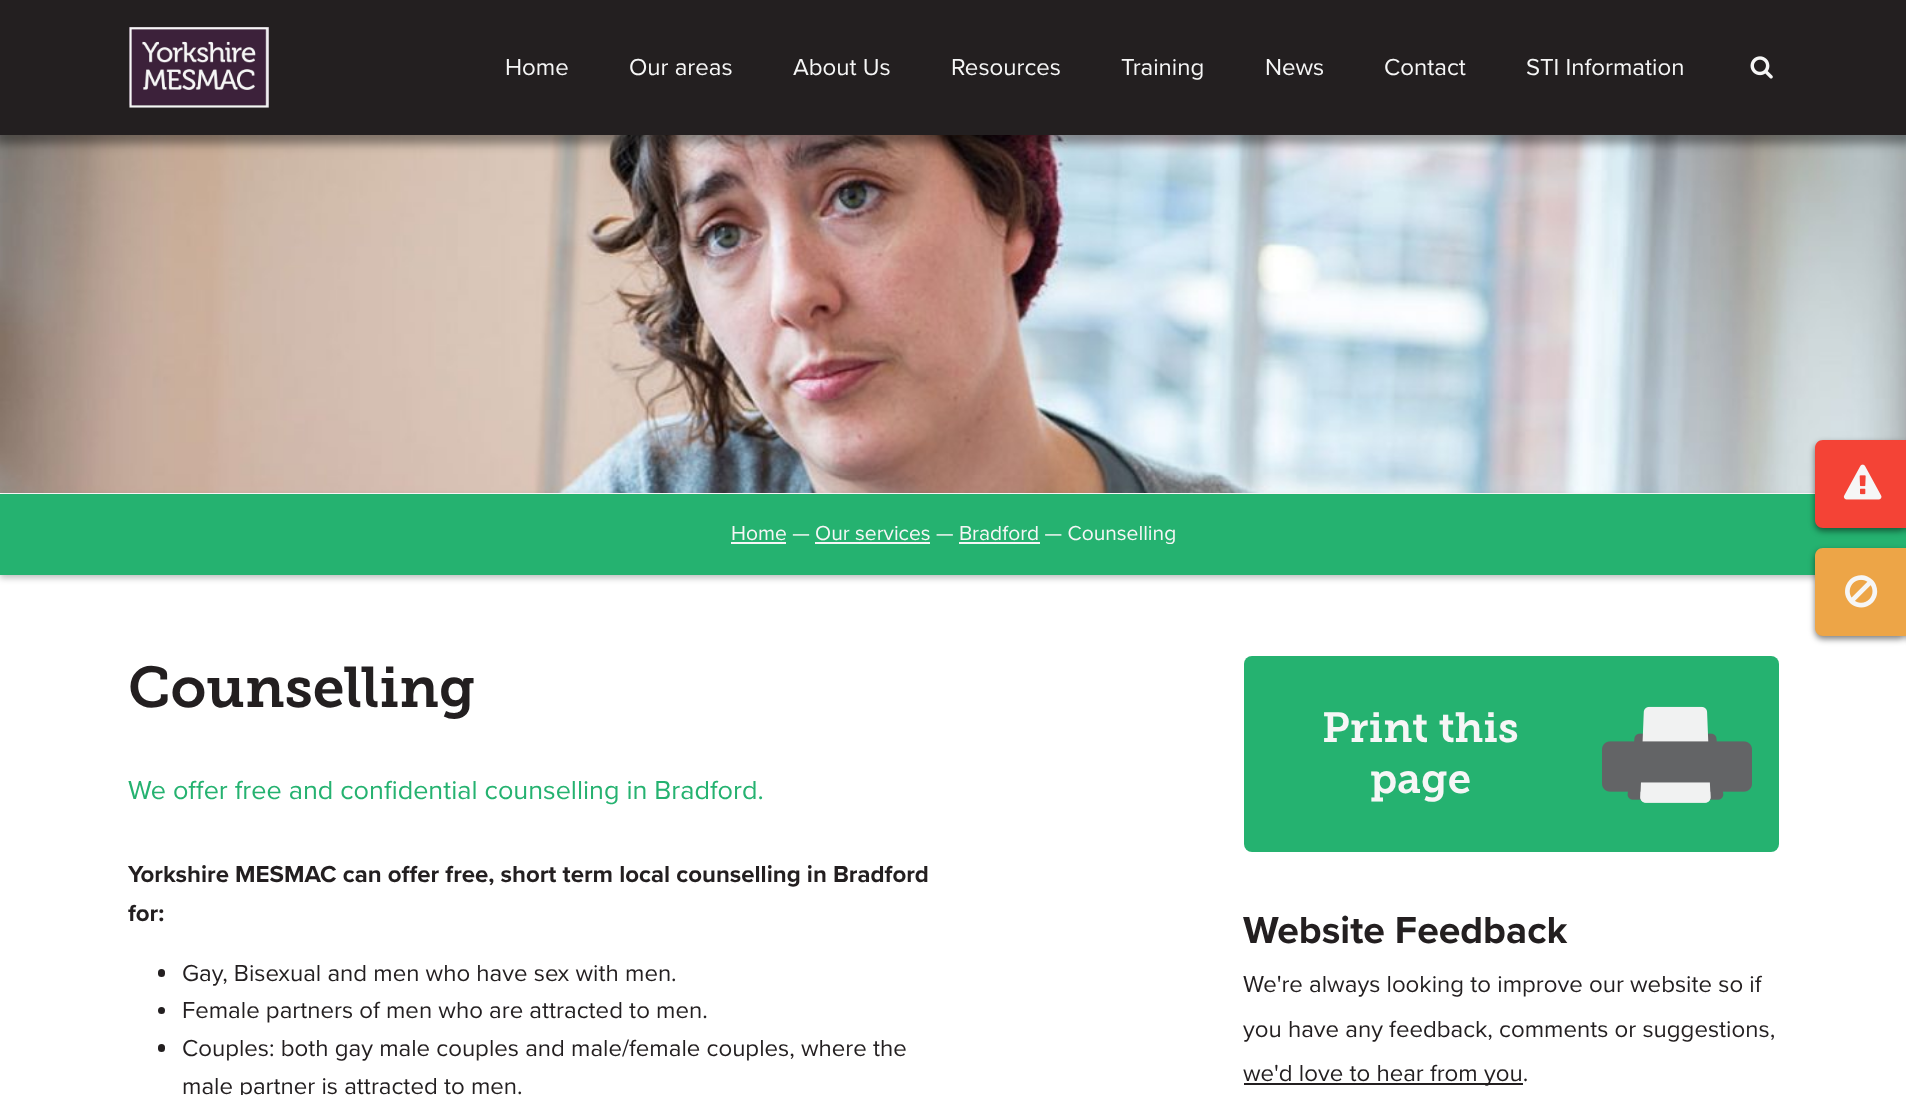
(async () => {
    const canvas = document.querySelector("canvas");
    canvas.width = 1906;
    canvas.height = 1095;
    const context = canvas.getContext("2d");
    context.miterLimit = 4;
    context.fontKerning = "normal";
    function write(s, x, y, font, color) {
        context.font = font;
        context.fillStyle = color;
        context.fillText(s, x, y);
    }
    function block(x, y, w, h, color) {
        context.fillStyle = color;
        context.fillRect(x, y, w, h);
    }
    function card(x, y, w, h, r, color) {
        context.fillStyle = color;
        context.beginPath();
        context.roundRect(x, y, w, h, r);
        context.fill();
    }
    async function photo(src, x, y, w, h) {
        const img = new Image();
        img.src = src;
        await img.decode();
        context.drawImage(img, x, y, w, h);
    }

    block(0, 0, 1906, 1095, "rgb(255, 255, 255)");
    await photo("media/4.png", 0, 135, 1906, 358);
    context.fillStyle = "rgba(0, 0, 0, 0.38)";
    context.filter = "blur(5px)";
    context.beginPath();
    context.rect(-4, 0, 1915, 144);
    context.fill();
    context.filter = "none";
    block(0, 0, 1906, 135, "rgb(35, 31, 32)");
    await photo("media/1.png", 129, 27, 140, 81);
    write("Home", 505, 75, "24px Proxima Nova", "rgb(246, 246, 246)");
    write("Our areas", 629, 75, "24px Proxima Nova", "rgb(246, 246, 246)");
    write("About Us", 793, 75, "24px Proxima Nova", "rgb(246, 246, 246)");
    write("Resources", 951, 75, "24px Proxima Nova", "rgb(246, 246, 246)");
    write("Training", 1121, 75, "24px Proxima Nova", "rgb(246, 246, 246)");
    write("News", 1265, 75, "24px Proxima Nova", "rgb(246, 246, 246)");
    write("Contact", 1384, 75, "24px Proxima Nova", "rgb(246, 246, 246)");
    write("STI Information", 1526, 75, "24px Proxima Nova", "rgb(246, 246, 246)");
    await photo("media/2.png", 1750, 56, 23, 23);
    context.fillStyle = "rgba(0, 0, 0, 0.25)";
    context.filter = "blur(3px)";
    context.beginPath();
    context.rect(0, 497, 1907, 81);
    context.fill();
    context.filter = "none";
    block(0, 494, 1906, 81, "rgb(37, 178, 112)");
    context.fillStyle = "rgba(0, 0, 0, 0.5)";
    context.filter = "blur(3px)";
    context.beginPath();
    context.roundRect(1815, 443, 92, 88, 8);
    context.fill();
    context.filter = "none";
    context.filter = "blur(3px)";
    context.beginPath();
    context.rect(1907, 443, 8, 88);
    context.fill();
    context.filter = "none";
    context.fillStyle = "rgb(244, 67, 54)";
    context.beginPath();
    context.moveTo(1823, 440);
    context.lineTo(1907, 440);
    context.lineTo(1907, 528);
    context.lineTo(1823, 528);
    context.bezierCurveTo(1818.5, 528, 1815, 524.5, 1815, 520);
    context.lineTo(1815, 448);
    context.bezierCurveTo(1815, 443.5, 1818.5, 440, 1823, 440);
    context.closePath();
    context.fill();
    await photo("media/3.png", 1843, 464, 39, 36);
    block(731, 542, 55, 2, "rgb(246, 246, 246)");
    write("Home — Our services — Bradford — Counselling", 731, 540, "21px Proxima Nova", "rgb(246, 246, 246)");
    block(815, 542, 115, 2, "rgb(246, 246, 246)");
    block(959, 542, 81, 2, "rgb(246, 246, 246)");
    write("Counselling", 128, 707, "600 57px 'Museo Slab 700'", "rgb(35, 31, 32)");
    write("We offer free and confidential counselling in Bradford.", 128, 799, "27px Proxima Nova", "rgb(37, 178, 112)");
    write("Yorkshire MESMAC can offer free, short term local counselling in Bradford", 128, 882, "bold 24px Proxima Nova", "rgb(35, 31, 32)");
    write("for:", 128, 921, "bold 24px Proxima Nova", "rgb(35, 31, 32)");
    card(158, 969, 7, 8, 3.5, "rgb(35, 31, 32)");
    write("Gay, Bisexual and men who have sex with men.", 182, 981, "24px Proxima Nova", "rgb(35, 31, 32)");
    context.beginPath();
    context.arc(161.5, 1010.5, 3.5, 0, Math.PI * 2);
    context.fill();
    write("Female partners of men who are attracted to men.", 182, 1018, "24px Proxima Nova", "rgb(35, 31, 32)");
    card(158, 1044, 7, 8, 3.5, "rgb(35, 31, 32)");
    write("Couples: both gay male couples and male/female couples, where the", 182, 1056, "24px Proxima Nova", "rgb(35, 31, 32)");
    write("male partner is attracted to men.", 182, 1094, "24px Proxima Nova", "rgb(35, 31, 32)");
    card(1244, 656, 535, 196, 8, "rgb(37, 178, 112)");
    write("Print this", 1322, 742, "600 42px 'Museo Slab 700'", "rgb(246, 246, 246)");
    write("page", 1370, 793, "600 42px 'Museo Slab 700'", "rgb(246, 246, 246)");
    await photo("media/5.png", 1602, 706, 150, 97);
    write("Website Feedback", 1243, 943, "bold 39px Proxima Nova", "rgb(35, 31, 32)");
    write("We're always looking to improve our website so if", 1243, 992, "24px Proxima Nova", "rgb(35, 31, 32)");
    write("you have any feedback, comments or suggestions,", 1243, 1037, "24px Proxima Nova", "rgb(35, 31, 32)");
    block(1244, 1083, 279, 2, "rgb(35, 31, 32)");
    write("we'd love to hear from you.", 1243, 1081, "24px Proxima Nova", "rgb(35, 31, 32)");
    context.fillStyle = "rgba(0, 0, 0, 0.5)";
    context.filter = "blur(3px)";
    context.beginPath();
    context.roundRect(1815, 551, 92, 88, 8);
    context.fill();
    context.filter = "none";
    context.filter = "blur(3px)";
    context.beginPath();
    context.rect(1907, 551, 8, 88);
    context.fill();
    context.filter = "none";
    context.fillStyle = "rgb(237, 165, 71)";
    context.beginPath();
    context.moveTo(1823, 548);
    context.lineTo(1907, 548);
    context.lineTo(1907, 636);
    context.lineTo(1823, 636);
    context.bezierCurveTo(1818.5, 636, 1815, 632.5, 1815, 628);
    context.lineTo(1815, 556);
    context.bezierCurveTo(1815, 551.5, 1818.5, 548, 1823, 548);
    context.closePath();
    context.fill();
    await photo("media/6.png", 1845, 575, 33, 33);
})();
